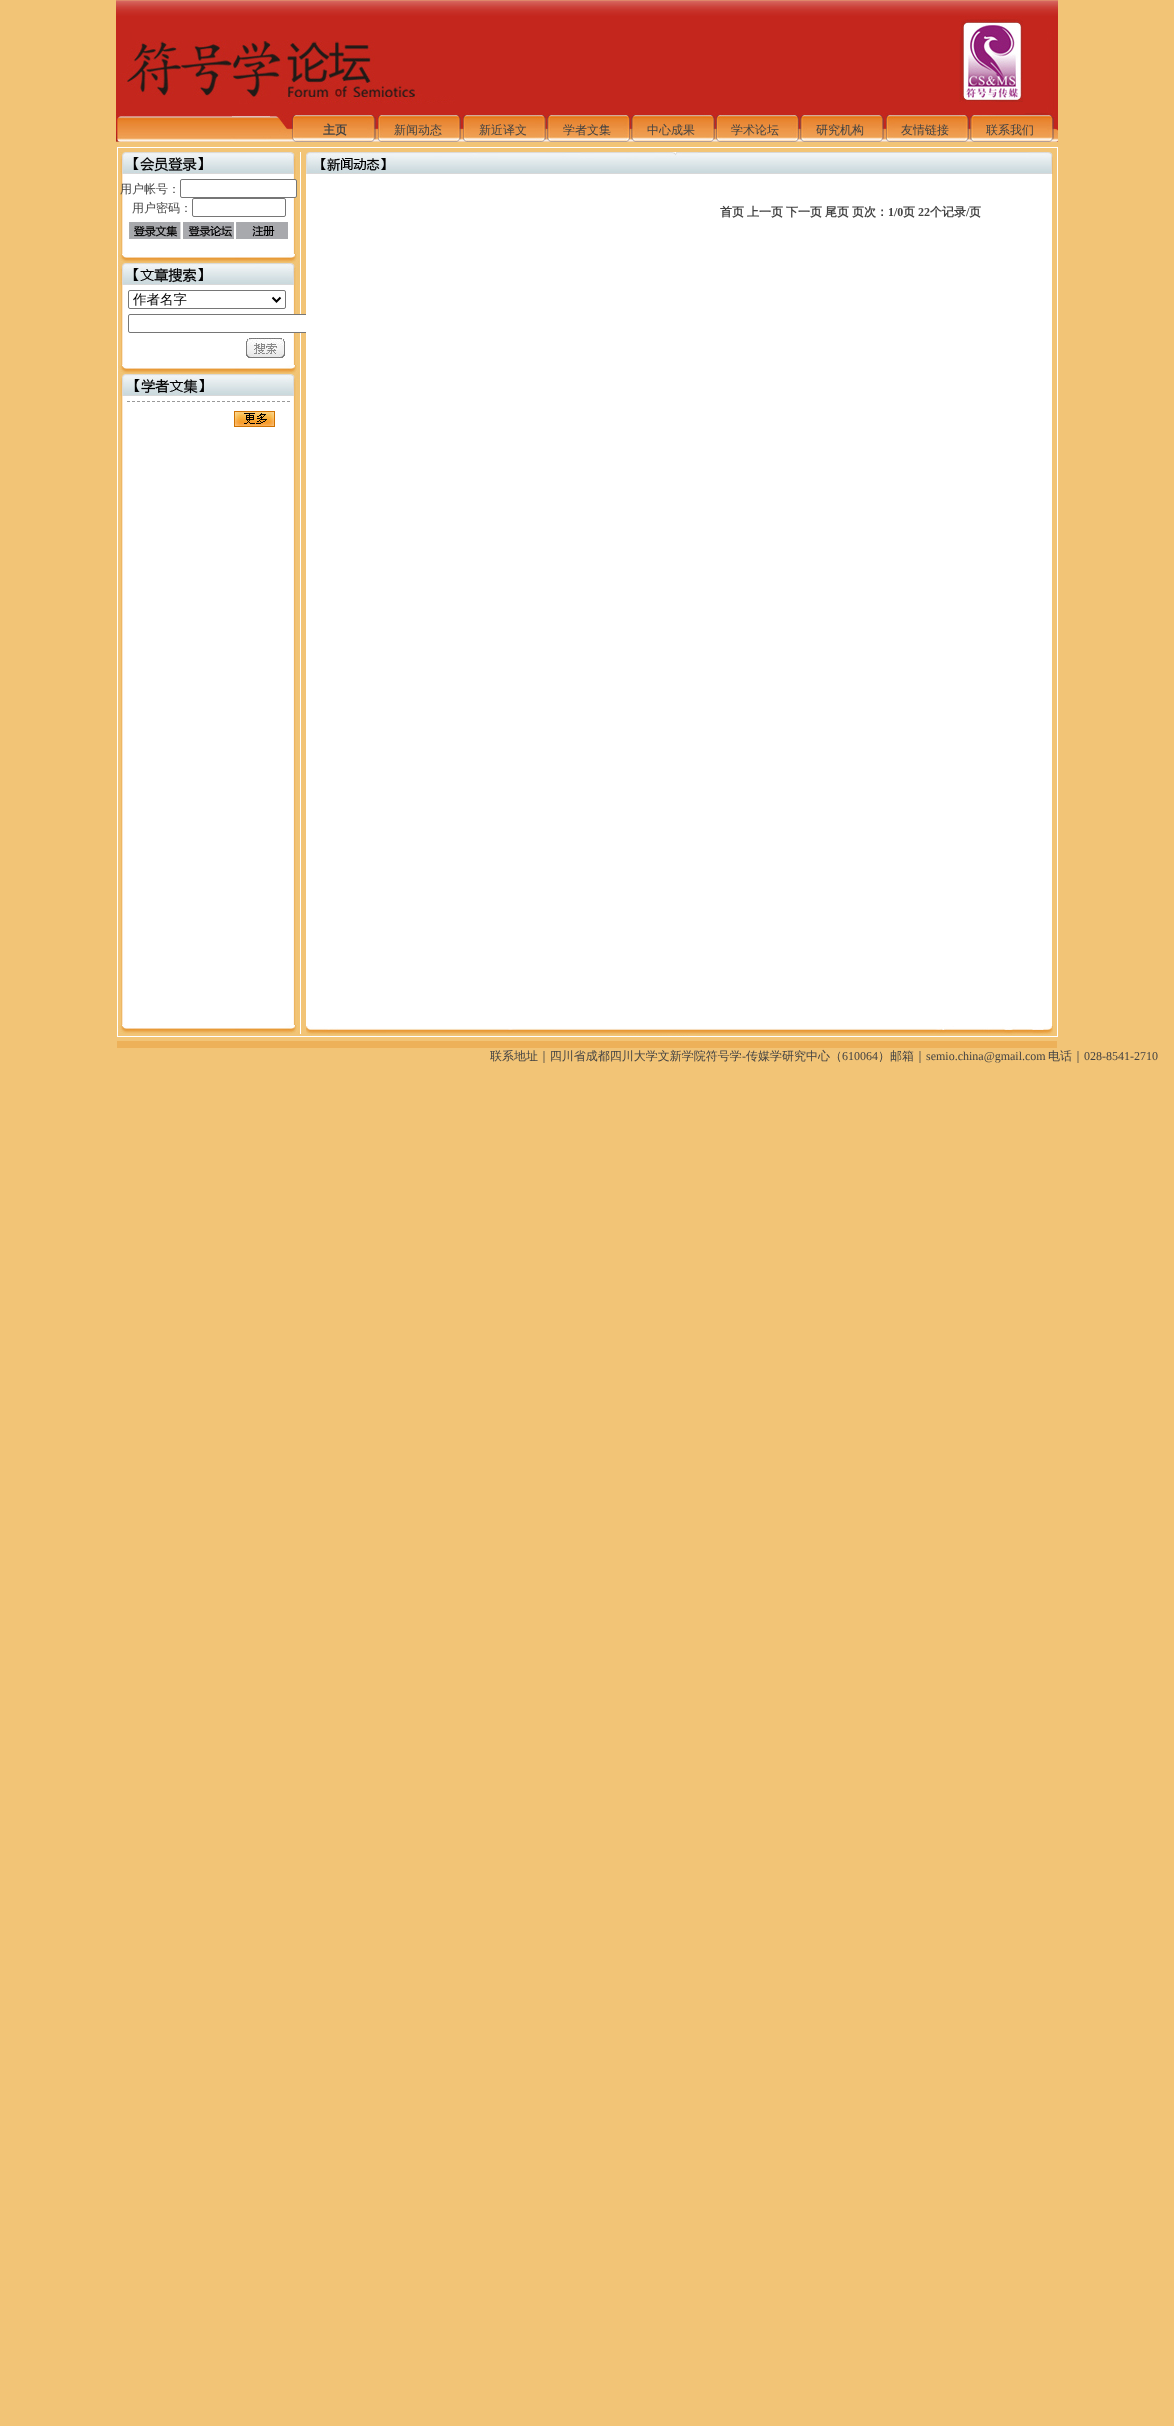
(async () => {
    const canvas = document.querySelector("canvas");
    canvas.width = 1174;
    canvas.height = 2426;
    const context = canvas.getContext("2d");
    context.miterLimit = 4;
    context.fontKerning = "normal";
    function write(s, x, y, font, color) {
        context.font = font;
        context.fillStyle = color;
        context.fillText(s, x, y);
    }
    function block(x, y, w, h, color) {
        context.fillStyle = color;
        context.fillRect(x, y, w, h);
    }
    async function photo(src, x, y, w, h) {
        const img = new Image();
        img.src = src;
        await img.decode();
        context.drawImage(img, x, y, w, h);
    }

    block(0, 0, 1174, 2426, "rgb(242, 196, 118)");
    await photo("media/1.png", 116, 0, 942, 142);
    write("主页", 323, 134, "bold 12px WenQuanYi Zen Hei", "rgb(67, 67, 67)");
    write("新闻动态", 394, 134, "500 12px WenQuanYi Zen Hei", "rgb(67, 67, 67)");
    write("新近译文", 479, 134, "500 12px WenQuanYi Zen Hei", "rgb(67, 67, 67)");
    write("学者文集", 563, 134, "500 12px WenQuanYi Zen Hei", "rgb(67, 67, 67)");
    write("中心成果", 647, 134, "500 12px WenQuanYi Zen Hei", "rgb(67, 67, 67)");
    write("学术论坛", 731, 134, "500 12px WenQuanYi Zen Hei", "rgb(67, 67, 67)");
    write("研究机构", 816, 134, "500 12px WenQuanYi Zen Hei", "rgb(67, 67, 67)");
    write("友情链接", 901, 134, "500 12px WenQuanYi Zen Hei", "rgb(67, 67, 67)");
    write("联系我们", 986, 134, "500 12px WenQuanYi Zen Hei", "rgb(67, 67, 67)");
    context.strokeStyle = "rgb(255, 255, 255)";
    context.strokeRect(117.5, 147.5, 940, 889);
    await photo("media/2.png", 118, 254, 181, 9);
    block(300, 152, 1, 882, "rgb(255, 255, 255)");
    await photo("media/3.png", 120, 152, 180, 22);
    await photo("media/4.png", 121, 174, 177, 80);
    write("用户帐号：", 120, 193, "500 12px WenQuanYi Zen Hei", "rgb(67, 67, 67)");
    context.fillStyle = "rgb(255, 255, 255)";
    context.beginPath();
    context.roundRect(180.5, 179.5, 116, 18, 1.5);
    context.fill();
    context.strokeStyle = "rgb(118, 118, 118)";
    context.stroke();
    write("用户密码：", 132, 212, "500 12px WenQuanYi Zen Hei", "rgb(67, 67, 67)");
    context.beginPath();
    context.roundRect(192.5, 198.5, 93, 18, 1.5);
    context.stroke();
    await photo("media/5.png", 129, 222, 52, 17);
    await photo("media/6.png", 183, 222, 51, 17);
    await photo("media/7.png", 236, 222, 52, 17);
    await photo("media/2.png", 118, 365, 181, 9);
    await photo("media/8.png", 118, 263, 182, 22);
    await photo("media/4.png", 121, 285, 177, 80);
    context.beginPath();
    context.roundRect(128.5, 290.5, 157, 18, 1.5);
    context.stroke();
    context.beginPath();
    context.moveTo(272.5, 297.5);
    context.lineTo(276.5, 301.5);
    context.lineTo(280.5, 297.5);
    context.strokeStyle = "rgb(0, 0, 0)";
    context.lineWidth = 2;
    context.stroke();
    write("作者名字", 133, 304, "500 13.5px WenQuanYi Zen Hei", "rgb(0, 0, 0)");
    context.fillStyle = "rgb(255, 255, 255)";
    context.beginPath();
    context.roundRect(128.5, 314.5, 188, 18, 1.5);
    context.fill();
    context.strokeStyle = "rgb(118, 118, 118)";
    context.lineWidth = 1;
    context.stroke();
    await photo("media/9.png", 246, 338, 39, 20);
    await photo("media/2.png", 118, 1025, 181, 9);
    await photo("media/10.png", 120, 374, 180, 22);
    await photo("media/11.png", 121, 396, 177, 629);
    context.beginPath();
    context.moveTo(127, 401.5);
    context.lineTo(290, 401.5);
    context.strokeStyle = "rgb(153, 153, 153)";
    context.setLineDash([3, 2]);
    context.stroke();
    await photo("media/12.png", 234, 411, 41, 16);
    await photo("media/13.png", 306, 152, 747, 22);
    block(306, 174, 746, 852, "rgb(255, 255, 255)");
    write("首页", 720, 216, "bold 12px WenQuanYi Zen Hei", "rgb(67, 67, 67)");
    write("上一页", 747, 216, "bold 12px WenQuanYi Zen Hei", "rgb(67, 67, 67)");
    write("下一页", 786, 216, "bold 12px WenQuanYi Zen Hei", "rgb(67, 67, 67)");
    write("尾页", 825, 216, "bold 12px WenQuanYi Zen Hei", "rgb(67, 67, 67)");
    write("页次：", 852, 216, "bold 12px WenQuanYi Zen Hei", "rgb(67, 67, 67)");
    write("1/0", 888, 216, "bold 12px Liberation Serif", "rgb(67, 67, 67)");
    write("页", 903, 216, "bold 12px WenQuanYi Zen Hei", "rgb(67, 67, 67)");
    write("22", 918, 216, "bold 12px Liberation Serif", "rgb(67, 67, 67)");
    write("个记录", 930, 216, "bold 12px WenQuanYi Zen Hei", "rgb(67, 67, 67)");
    write("/", 966, 216, "bold 12px Liberation Serif", "rgb(67, 67, 67)");
    write("页", 969, 216, "bold 12px WenQuanYi Zen Hei", "rgb(67, 67, 67)");
    await photo("media/14.png", 306, 1026, 747, 10);
    block(117, 1041, 940, 7, "rgb(237, 177, 89)");
    write("联系地址｜四川省成都四川大学文新学院符号学", 490, 1060, "500 12px WenQuanYi Zen Hei", "rgb(67, 67, 67)");
    write("-", 742, 1060, "12px Liberation Serif", "rgb(67, 67, 67)");
    write("传媒学研究中心（", 746, 1060, "500 12px WenQuanYi Zen Hei", "rgb(67, 67, 67)");
    write("610064", 842, 1060, "12px Liberation Serif", "rgb(67, 67, 67)");
    write("）邮箱｜", 878, 1060, "500 12px WenQuanYi Zen Hei", "rgb(67, 67, 67)");
    write("semio.china@gmail.com", 926, 1060, "12px Liberation Serif", "rgb(67, 67, 67)");
    write("电话｜", 1048, 1060, "500 12px WenQuanYi Zen Hei", "rgb(67, 67, 67)");
    write("028-8541-2710", 1084, 1060, "12px Liberation Serif", "rgb(67, 67, 67)");
})();
